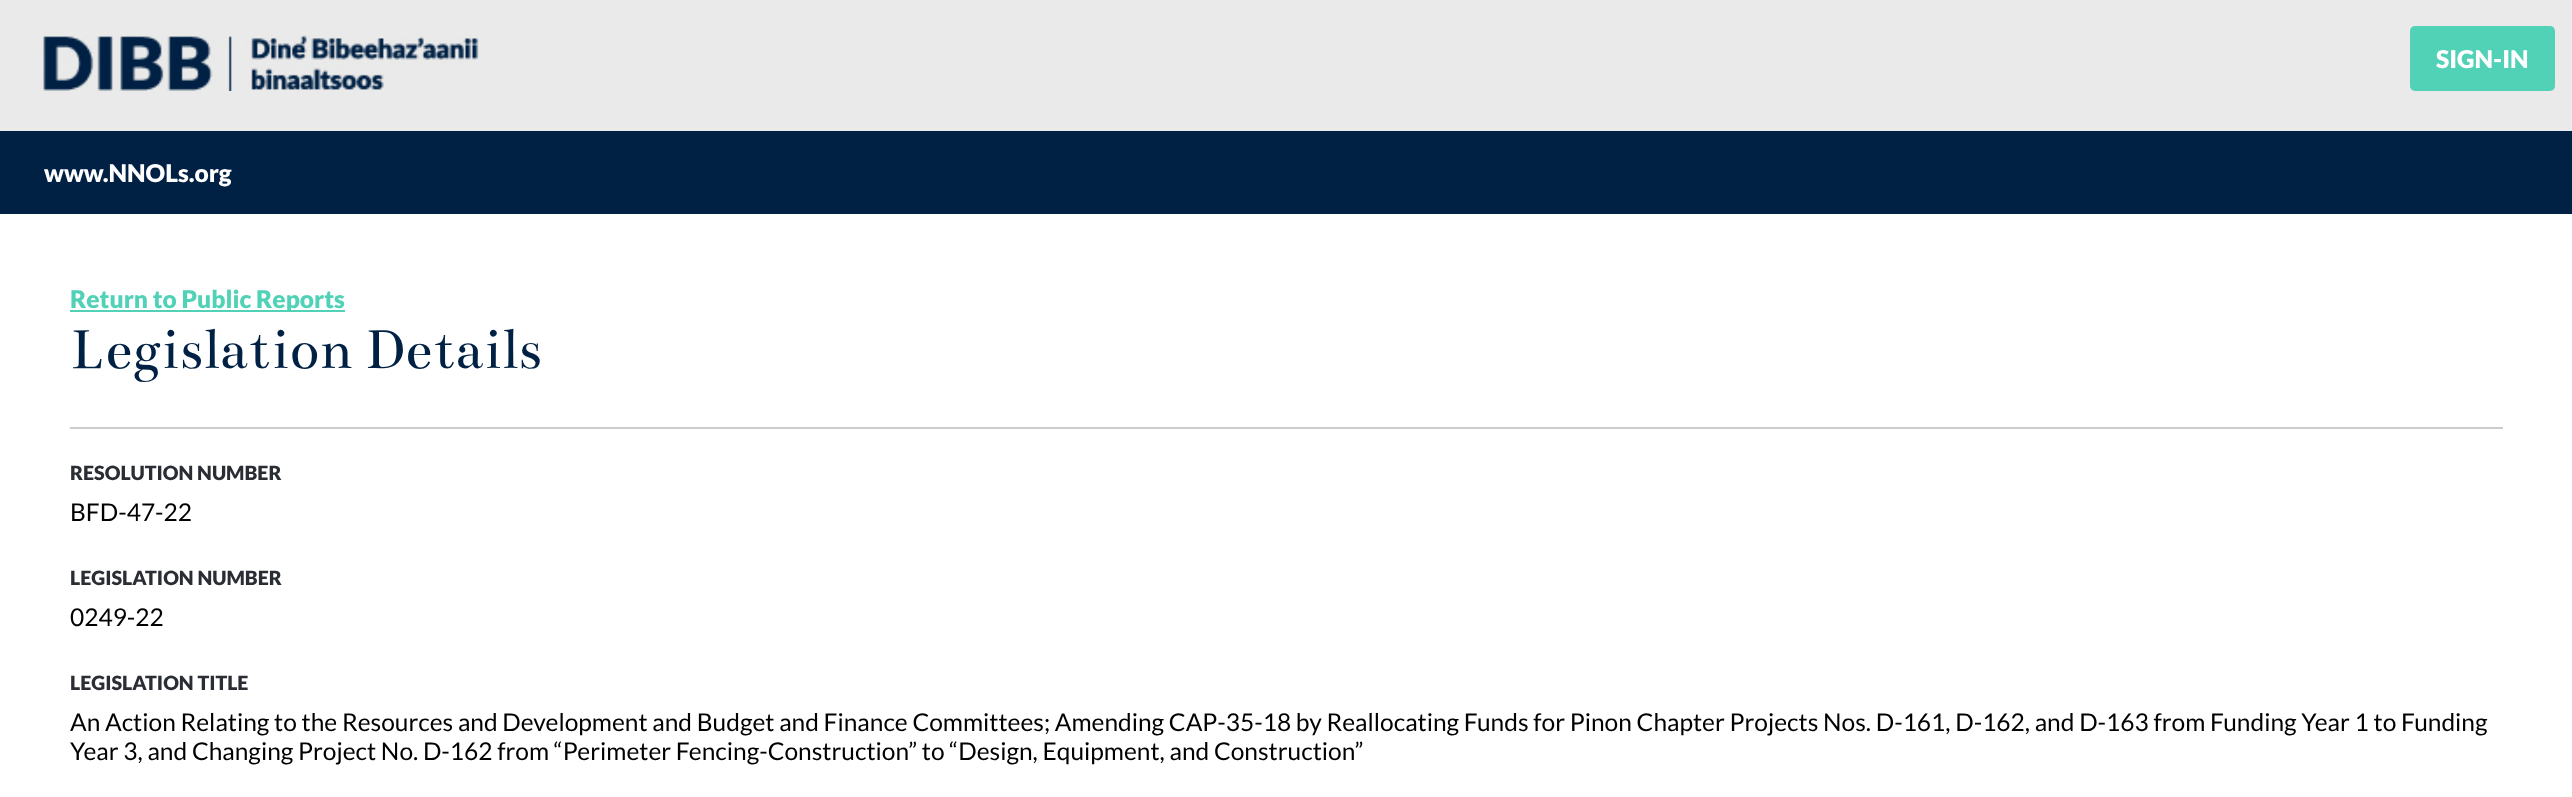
(async () => {
    const canvas = document.querySelector("canvas");
    canvas.width = 2572;
    canvas.height = 797;
    const context = canvas.getContext("2d");
    context.miterLimit = 4;
    context.fontKerning = "normal";
    function write(s, x, y, font, color) {
        context.font = font;
        context.fillStyle = color;
        context.fillText(s, x, y);
    }
    function block(x, y, w, h, color) {
        context.fillStyle = color;
        context.fillRect(x, y, w, h);
    }
    function card(x, y, w, h, r, color) {
        context.fillStyle = color;
        context.beginPath();
        context.roundRect(x, y, w, h, r);
        context.fill();
    }
    async function photo(src, x, y, w, h) {
        const img = new Image();
        img.src = src;
        await img.decode();
        context.drawImage(img, x, y, w, h);
    }

    block(0, 0, 2572, 797, "rgb(234, 234, 234)");
    await photo("media/1.png", 43, 35, 436, 56);
    card(2410, 26, 145, 65, 5, "rgb(81, 210, 183)");
    write("SIGN-IN", 2436, 68, "900 24.5px Lato", "rgb(255, 255, 255)");
    block(0, 131, 2572, 83, "rgb(0, 33, 68)");
    write("www.NNOLs.org", 44, 182, "900 24.5px Lato", "rgb(255, 255, 255)");
    block(0, 214, 2572, 583, "rgb(255, 255, 255)");
    block(70, 310, 275, 2, "rgb(81, 210, 183)");
    write("Return to Public Reports", 70, 308, "900 24.5px Lato", "rgb(81, 210, 183)");
    write("Legislation Details", 70, 368, "61.25px Bentham", "rgb(0, 33, 68)");
    block(70, 427, 2433, 2, "rgb(204, 204, 204)");
    write("RESOLUTION NUMBER", 70, 480, "900 19.6px Lato", "rgb(42, 45, 51)");
    write("BFD-47-22", 70, 521, "24.5px Lato", "rgb(0, 0, 0)");
    write("LEGISLATION NUMBER", 70, 585, "900 19.6px Lato", "rgb(42, 45, 51)");
    write("0249-22", 70, 626, "24.5px Lato", "rgb(0, 0, 0)");
    write("LEGISLATION TITLE", 70, 690, "900 19.6px Lato", "rgb(42, 45, 51)");
    write("An Action Relating to the Resources and Development and Budget and Finance Committees; Amending CAP-35-18 by Reallocating Funds for Pinon Chapter Projects Nos. D-161, D-162, and D-163 from Funding Year 1 to Funding", 70, 731, "24.5px Lato", "rgb(0, 0, 0)");
    write("Year 3, and Changing Project No. D-162 from “Perimeter Fencing-Construction” to “Design, Equipment, and Construction”", 70, 760, "24.5px Lato", "rgb(0, 0, 0)");
})();
